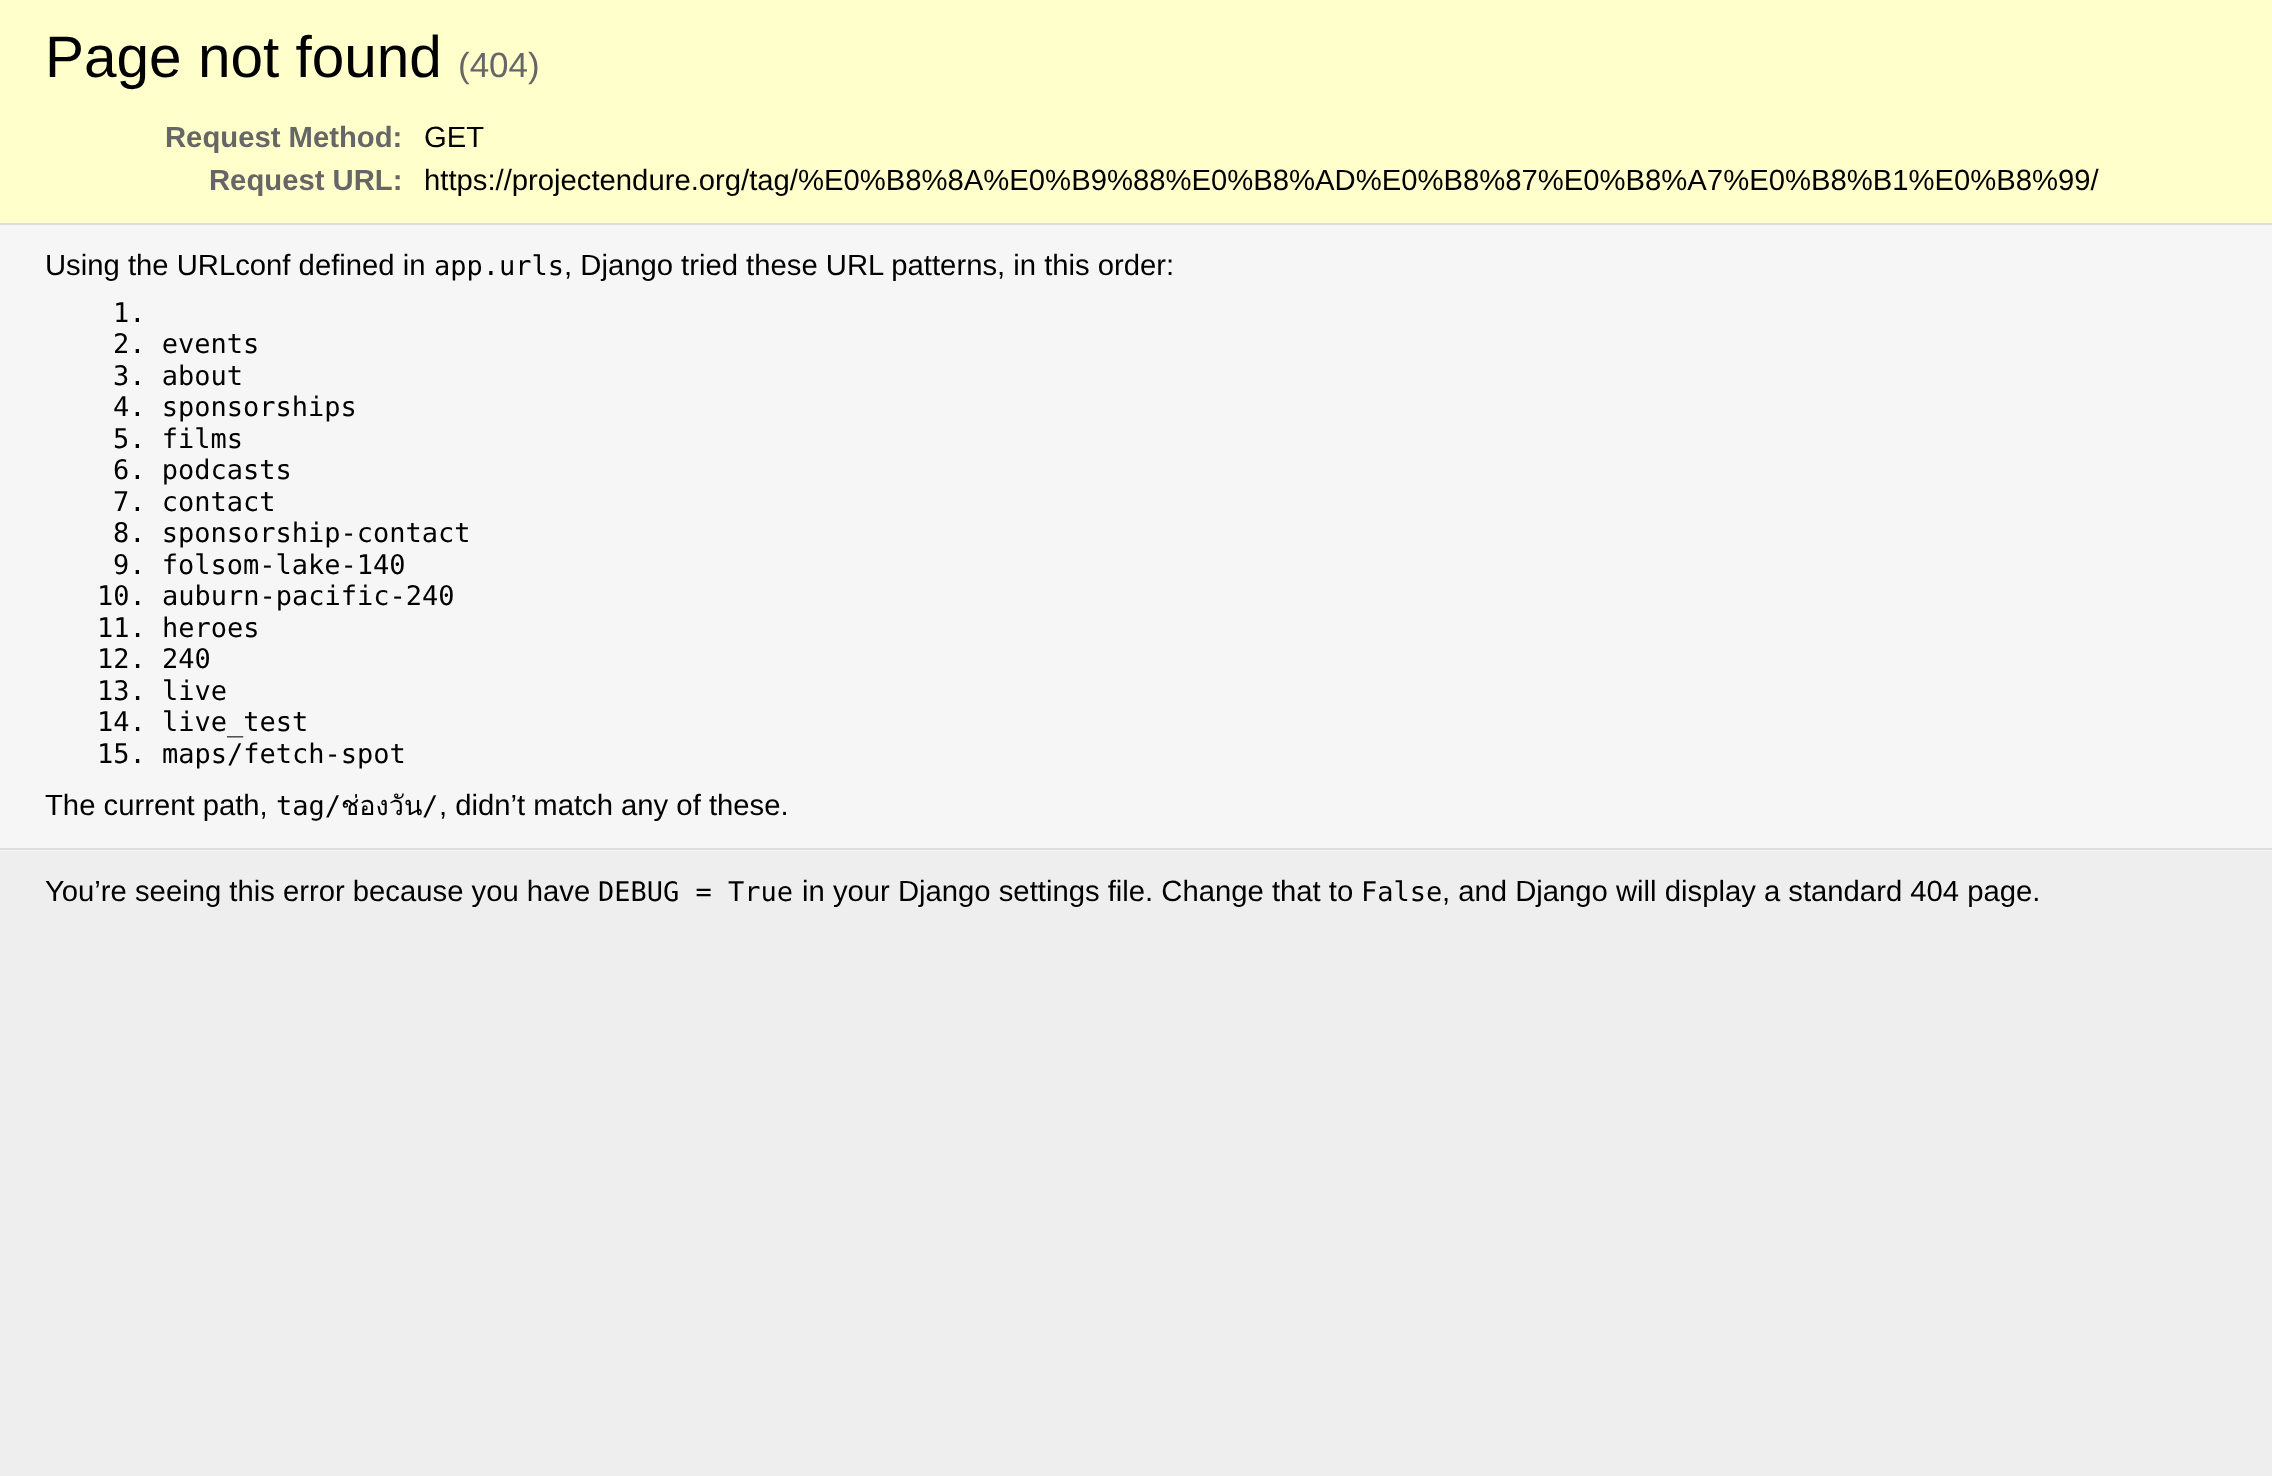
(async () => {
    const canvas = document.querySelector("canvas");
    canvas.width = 2272;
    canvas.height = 1476;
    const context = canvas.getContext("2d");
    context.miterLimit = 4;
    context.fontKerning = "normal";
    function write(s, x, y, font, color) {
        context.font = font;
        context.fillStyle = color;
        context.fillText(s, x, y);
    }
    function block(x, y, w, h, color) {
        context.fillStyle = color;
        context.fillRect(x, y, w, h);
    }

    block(0, 0, 2272, 1476, "rgb(238, 238, 238)");
    block(0, 0, 2272, 223, "rgb(255, 255, 204)");
    block(0, 223, 2272, 2, "rgb(221, 221, 221)");
    write("Page not found", 45, 77, "58.5px Liberation Sans", "rgb(0, 0, 0)");
    write("(404)", 458, 77, "35px Liberation Sans", "rgb(102, 102, 102)");
    write("Request Method:", 165, 147, "bold 29.25px Liberation Sans", "rgb(102, 102, 102)");
    write("GET", 424, 147, "29.25px Liberation Sans", "rgb(0, 0, 0)");
    write("Request URL:", 209, 190, "bold 29.25px Liberation Sans", "rgb(102, 102, 102)");
    write("https://projectendure.org/tag/%E0%B8%8A%E0%B9%88%E0%B8%AD%E0%B8%87%E0%B8%A7%E0%B8%B1%E0%B8%99/", 424, 190, "29.25px Liberation Sans", "rgb(0, 0, 0)");
    block(0, 225, 2272, 626, "rgb(246, 246, 246)");
    block(0, 848, 2272, 2, "rgb(221, 221, 221)");
    write("Using the URLconf defined in", 45, 275, "29.25px Liberation Sans", "rgb(0, 0, 0)");
    write("app.urls", 434, 275, "27px DejaVu Sans Mono", "rgb(0, 0, 0)");
    write(", Django tried these URL patterns, in this order:", 564, 275, "29.25px Liberation Sans", "rgb(0, 0, 0)");
    write("1.", 113, 322, "27px DejaVu Sans Mono", "rgb(0, 0, 0)");
    write("2. events", 113, 353, "27px DejaVu Sans Mono", "rgb(0, 0, 0)");
    write("3. about", 113, 385, "27px DejaVu Sans Mono", "rgb(0, 0, 0)");
    write("4. sponsorships", 113, 416, "27px DejaVu Sans Mono", "rgb(0, 0, 0)");
    write("5. films", 113, 448, "27px DejaVu Sans Mono", "rgb(0, 0, 0)");
    write("6. podcasts", 113, 479, "27px DejaVu Sans Mono", "rgb(0, 0, 0)");
    write("7. contact", 113, 511, "27px DejaVu Sans Mono", "rgb(0, 0, 0)");
    write("8. sponsorship-contact", 113, 542, "27px DejaVu Sans Mono", "rgb(0, 0, 0)");
    write("9. folsom-lake-140", 113, 574, "27px DejaVu Sans Mono", "rgb(0, 0, 0)");
    write("10. auburn-pacific-240", 97, 605, "27px DejaVu Sans Mono", "rgb(0, 0, 0)");
    write("11. heroes", 97, 637, "27px DejaVu Sans Mono", "rgb(0, 0, 0)");
    write("12. 240", 97, 668, "27px DejaVu Sans Mono", "rgb(0, 0, 0)");
    write("13. live", 97, 700, "27px DejaVu Sans Mono", "rgb(0, 0, 0)");
    write("14. live_test", 97, 731, "27px DejaVu Sans Mono", "rgb(0, 0, 0)");
    write("15. maps/fetch-spot", 97, 763, "27px DejaVu Sans Mono", "rgb(0, 0, 0)");
    write("The current path,", 45, 815, "29.25px Liberation Sans", "rgb(0, 0, 0)");
    write("tag/", 276, 815, "27px DejaVu Sans Mono", "rgb(0, 0, 0)");
    write("ช่องวัน", 341, 815, "27px Loma", "rgb(0, 0, 0)");
    write("/", 422, 815, "27px DejaVu Sans Mono", "rgb(0, 0, 0)");
    write(", didn’t match any of these.", 439, 815, "29.25px Liberation Sans", "rgb(0, 0, 0)");
    write("You’re seeing this error because you have", 45, 901, "29.25px Liberation Sans", "rgb(0, 0, 0)");
    write("DEBUG = True", 598, 901, "27px DejaVu Sans Mono", "rgb(0, 0, 0)");
    write("in your Django settings file. Change that to", 802, 901, "29.25px Liberation Sans", "rgb(0, 0, 0)");
    write("False", 1361, 901, "27px DejaVu Sans Mono", "rgb(0, 0, 0)");
    write(", and Django will display a standard 404 page.", 1442, 901, "29.25px Liberation Sans", "rgb(0, 0, 0)");
})();
